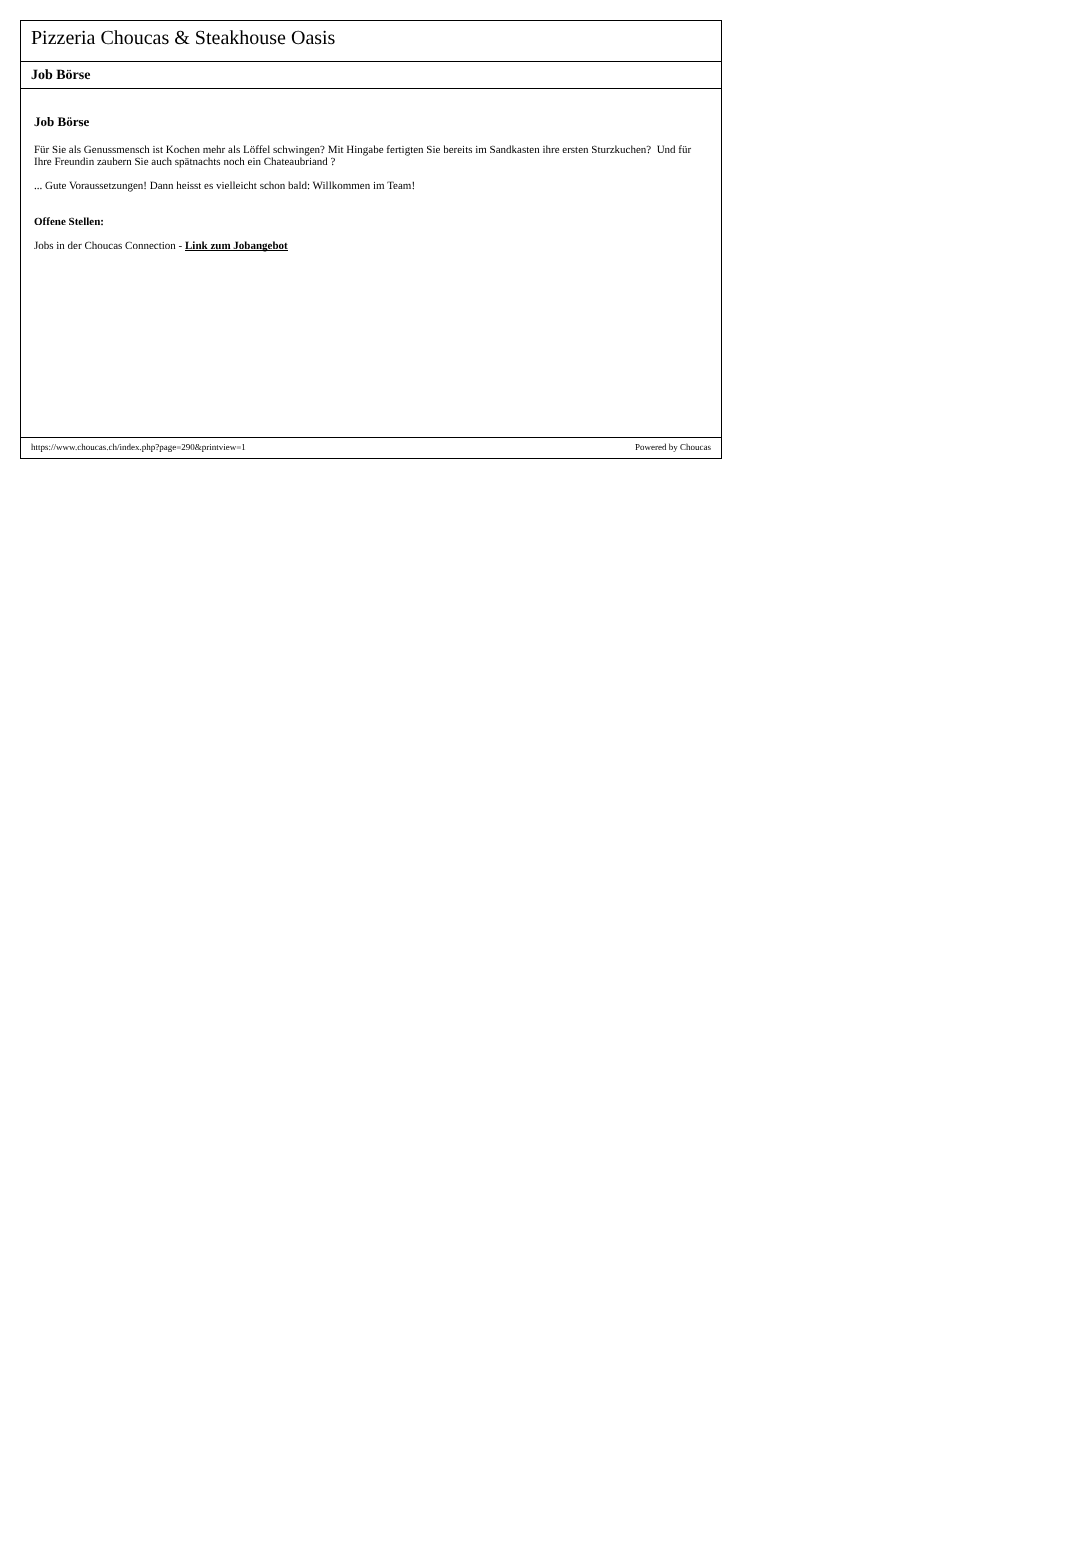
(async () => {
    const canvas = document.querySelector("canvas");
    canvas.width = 1089;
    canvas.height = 1543;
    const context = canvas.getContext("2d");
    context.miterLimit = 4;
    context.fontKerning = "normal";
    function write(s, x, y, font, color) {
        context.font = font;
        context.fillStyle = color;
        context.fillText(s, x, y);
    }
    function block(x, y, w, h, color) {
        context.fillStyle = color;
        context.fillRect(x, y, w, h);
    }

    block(0, 0, 1089, 1543, "rgb(255, 255, 255)");
    context.strokeStyle = "rgb(0, 0, 0)";
    context.strokeRect(20.5, 20.5, 701, 438);
    block(21, 61, 700, 1, "rgb(0, 0, 0)");
    write("Pizzeria Choucas & Steakhouse Oasis", 31, 44, "20px Liberation Serif", "rgb(0, 0, 0)");
    block(21, 437, 700, 1, "rgb(0, 0, 0)");
    block(21, 88, 700, 1, "rgb(0, 0, 0)");
    write("Job Börse", 31, 79, "bold 14px Liberation Serif", "rgb(0, 0, 0)");
    write("Job Börse", 34, 126, "bold 13px Liberation Serif", "rgb(0, 0, 0)");
    write("Für Sie als Genussmensch ist Kochen mehr als Löffel schwingen? Mit Hingabe fertigten Sie bereits im Sandkasten ihre ersten Sturzkuchen?  Und für", 34, 153, "11px Liberation Serif", "rgb(0, 0, 0)");
    write("Ihre Freundin zaubern Sie auch spätnachts noch ein Chateaubriand ?", 34, 165, "11px Liberation Serif", "rgb(0, 0, 0)");
    write("... Gute Voraussetzungen! Dann heisst es vielleicht schon bald: Willkommen im Team!", 34, 189, "11px Liberation Serif", "rgb(0, 0, 0)");
    write("Offene Stellen:", 34, 225, "bold 11px Liberation Serif", "rgb(0, 0, 0)");
    write("Jobs in der Choucas Connection -", 34, 249, "11px Liberation Serif", "rgb(0, 0, 0)");
    block(185, 250, 103, 1, "rgb(0, 0, 0)");
    write("Link zum Jobangebot", 185, 249, "bold 11px Liberation Serif", "rgb(0, 0, 0)");
    write("https://www.choucas.ch/index.php?page=290&printview=1", 31, 450, "9px Liberation Serif", "rgb(0, 0, 0)");
    write("Powered by Choucas", 635, 450, "9px Liberation Serif", "rgb(0, 0, 0)");
})();
